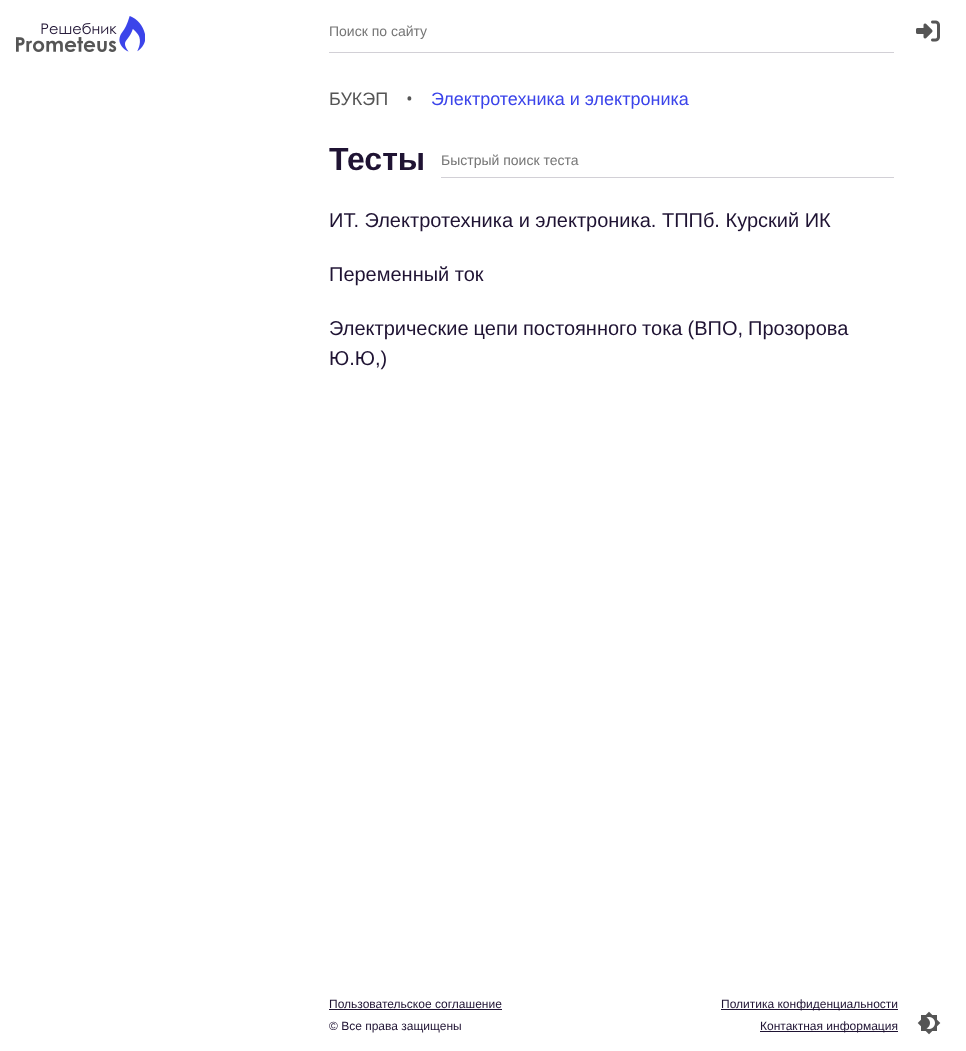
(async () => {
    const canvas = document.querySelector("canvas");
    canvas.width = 966;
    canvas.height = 1051;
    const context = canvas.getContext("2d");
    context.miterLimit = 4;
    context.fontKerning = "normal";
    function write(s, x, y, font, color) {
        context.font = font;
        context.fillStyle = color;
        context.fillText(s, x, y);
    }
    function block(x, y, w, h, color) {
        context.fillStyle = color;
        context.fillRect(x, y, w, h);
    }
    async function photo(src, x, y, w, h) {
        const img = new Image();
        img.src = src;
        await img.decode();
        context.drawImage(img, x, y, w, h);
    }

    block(0, 0, 966, 1051, "rgb(255, 255, 255)");
    await photo("media/1.png", 16, 16, 129, 36);
    await photo("media/2.png", 916, 20, 24, 22);
    block(329, 52, 565, 1, "rgb(210, 208, 214)");
    write("Поиск по сайту", 329, 36, "14px Liberation Sans", "rgb(117, 117, 117)");
    write("БУКЭП", 329, 105, "18px Liberation Sans", "rgb(85, 85, 85)");
    write("•", 406, 105, "18px Open Sans", "rgb(85, 85, 85)");
    write("Электротехника и электроника", 431, 105, "18px Liberation Sans", "rgb(59, 68, 234)");
    write("Тесты", 329, 170, "bold 32px Liberation Sans", "rgb(31, 19, 51)");
    block(441, 177, 453, 1, "rgb(210, 208, 214)");
    write("Быстрый поиск теста", 441, 165, "14px Liberation Sans", "rgb(117, 117, 117)");
    write("ИТ. Электротехника и электроника. ТППб. Курский ИК", 329, 227, "20px Liberation Sans", "rgb(31, 19, 51)");
    write("Переменный ток", 329, 281, "20px Liberation Sans", "rgb(31, 19, 51)");
    context.wordSpacing = "-0.5px";
    write("Электрические цепи постоянного тока (ВПО, Прозорова", 329, 335, "20px Liberation Sans", "rgb(31, 19, 51)");
    context.wordSpacing = "0px";
    write("Ю.Ю,)", 329, 365, "20px Liberation Sans", "rgb(31, 19, 51)");
    write("Пользовательское соглашение", 329, 1008, "12px Liberation Sans", "rgb(31, 19, 51)");
    block(329, 1009, 173, 1, "rgb(31, 19, 51)");
    block(721, 1009, 177, 1, "rgb(31, 19, 51)");
    write("Политика конфиденциальности", 721, 1008, "12px Liberation Sans", "rgb(31, 19, 51)");
    write("© Все права защищены", 329, 1030, "12px Liberation Sans", "rgb(31, 19, 51)");
    block(760, 1031, 138, 1, "rgb(31, 19, 51)");
    write("Контактная информация", 760, 1030, "12px Liberation Sans", "rgb(31, 19, 51)");
    await photo("media/3.png", 917, 1011, 24, 24);
})();
